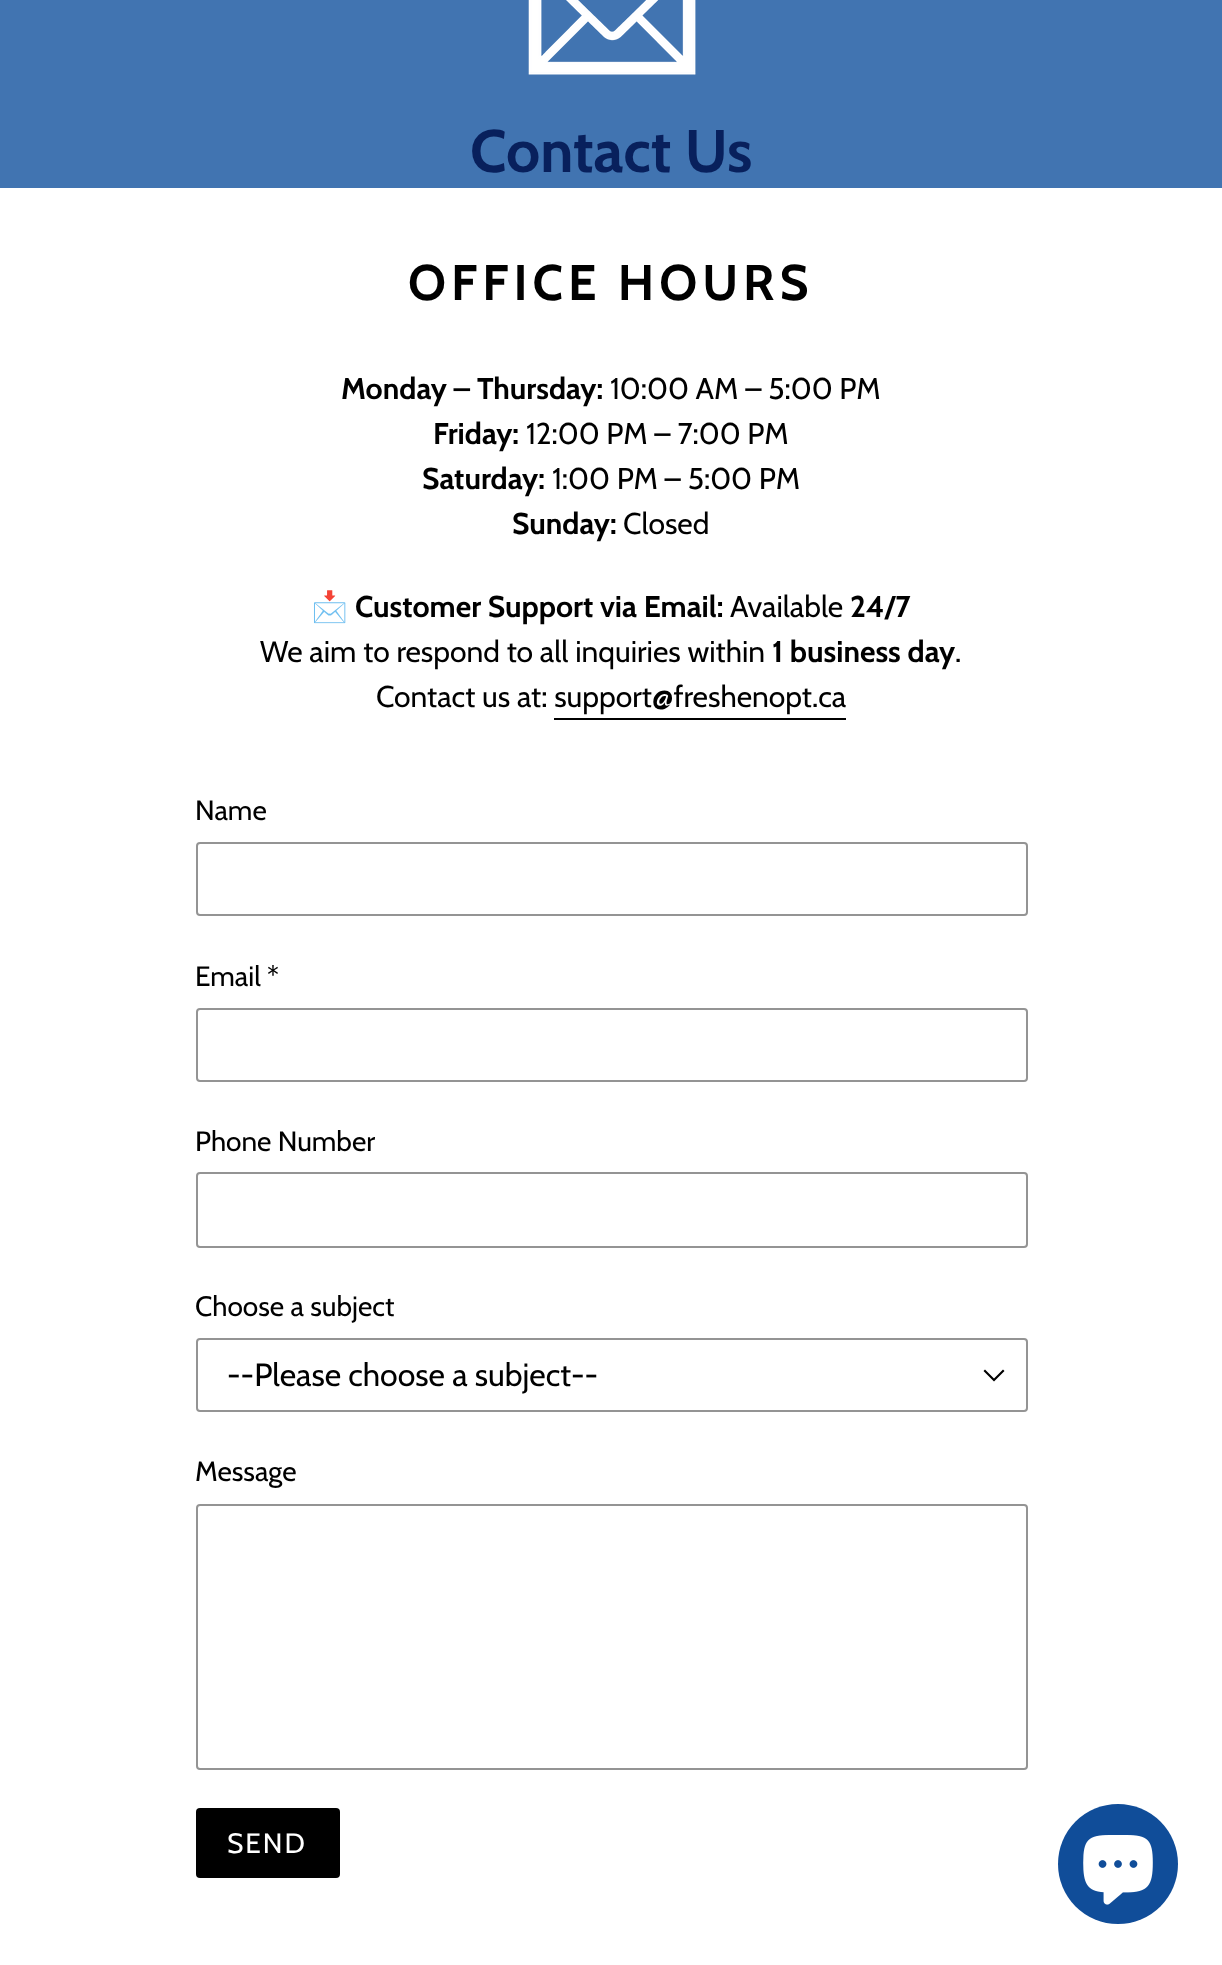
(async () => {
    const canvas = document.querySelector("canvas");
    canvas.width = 1222;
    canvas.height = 1965;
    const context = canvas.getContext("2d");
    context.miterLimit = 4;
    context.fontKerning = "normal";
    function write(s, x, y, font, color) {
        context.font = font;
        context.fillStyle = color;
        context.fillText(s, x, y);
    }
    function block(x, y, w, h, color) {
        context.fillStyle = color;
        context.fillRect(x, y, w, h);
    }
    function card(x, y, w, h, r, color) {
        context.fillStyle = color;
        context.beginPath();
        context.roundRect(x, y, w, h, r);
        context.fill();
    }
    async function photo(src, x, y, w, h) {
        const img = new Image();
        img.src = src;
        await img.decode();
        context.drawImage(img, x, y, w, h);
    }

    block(0, 0, 1222, 1965, "rgb(255, 255, 255)");
    block(0, 0, 1222, 188, "rgb(65, 116, 177)");
    await photo("media/1.png", 528, 0, 168, 75);
    write("Contact Us", 470, 172, "bold 60px Cabin", "rgb(8, 32, 92)");
    context.letterSpacing = "5px";
    write("OFFICE HOURS", 408, 300, "bold 50px Cabin", "rgb(0, 0, 0)");
    context.letterSpacing = "0px";
    write("Monday – Thursday:", 341, 399, "bold 30px Cabin", "rgb(0, 0, 0)");
    write("10:00 AM – 5:00 PM", 610, 399, "30px Cabin", "rgb(0, 0, 0)");
    write("Friday:", 433, 444, "bold 30px Cabin", "rgb(0, 0, 0)");
    write("12:00 PM – 7:00 PM", 526, 444, "30px Cabin", "rgb(0, 0, 0)");
    write("Saturday:", 422, 489, "bold 30px Cabin", "rgb(0, 0, 0)");
    write("1:00 PM – 5:00 PM", 552, 489, "30px Cabin", "rgb(0, 0, 0)");
    write("Sunday:", 512, 534, "bold 30px Cabin", "rgb(0, 0, 0)");
    write("Closed", 623, 534, "30px Cabin", "rgb(0, 0, 0)");
    write("📩", 311, 617, "30px Noto Color Emoji", "rgb(0, 0, 0)");
    write("Customer Support via Email:", 355, 617, "bold 30px Cabin", "rgb(0, 0, 0)");
    write("Available", 730, 617, "30px Cabin", "rgb(0, 0, 0)");
    write("24/7", 850, 617, "bold 30px Cabin", "rgb(0, 0, 0)");
    write("We aim to respond to all inquiries within", 260, 662, "30px Cabin", "rgb(0, 0, 0)");
    write("1 business day", 772, 662, "bold 30px Cabin", "rgb(0, 0, 0)");
    write(".", 955, 662, "30px Cabin", "rgb(0, 0, 0)");
    write("Contact us at: support@freshenopt.ca", 376, 707, "30px Cabin", "rgb(0, 0, 0)");
    block(554, 718, 292, 2, "rgb(0, 0, 0)");
    write("Name", 195, 820, "28px Cabin", "rgb(0, 0, 0)");
    context.beginPath();
    context.roundRect(197, 843, 830, 72, 3);
    context.strokeStyle = "rgb(148, 148, 148)";
    context.lineWidth = 2;
    context.stroke();
    write("Email *", 195, 986, "28px Cabin", "rgb(0, 0, 0)");
    context.beginPath();
    context.roundRect(197, 1009, 830, 72, 3);
    context.stroke();
    write("Phone Number", 195, 1151, "28px Cabin", "rgb(0, 0, 0)");
    context.beginPath();
    context.roundRect(197, 1173, 830, 74, 3);
    context.stroke();
    write("Choose a subject", 195, 1316, "28px Cabin", "rgb(0, 0, 0)");
    context.beginPath();
    context.moveTo(994, 1381.5);
    context.lineTo(983.5, 1371);
    context.lineTo(985, 1369.5);
    context.lineTo(994, 1378.5);
    context.lineTo(1003, 1369.5);
    context.lineTo(1004.5, 1371);
    context.closePath();
    context.fill();
    context.beginPath();
    context.roundRect(197, 1339, 830, 72, 3);
    context.stroke();
    write("--Please choose a subject--", 227, 1386, "32px Cabin", "rgb(0, 0, 0)");
    write("Message", 195, 1481, "28px Cabin", "rgb(0, 0, 0)");
    context.beginPath();
    context.roundRect(197, 1505, 830, 264, 3);
    context.stroke();
    card(196, 1808, 144, 70, 4, "rgb(0, 0, 0)");
    context.letterSpacing = "2px";
    write("SEND", 227, 1853, "28px Cabin", "rgb(255, 255, 255)");
    context.fillStyle = "rgb(16, 77, 153)";
    context.beginPath();
    context.arc(1118, 1864, 60, 0, Math.PI * 2);
    context.fill();
    await photo("media/2.png", 1083, 1835, 70, 70);
})();
